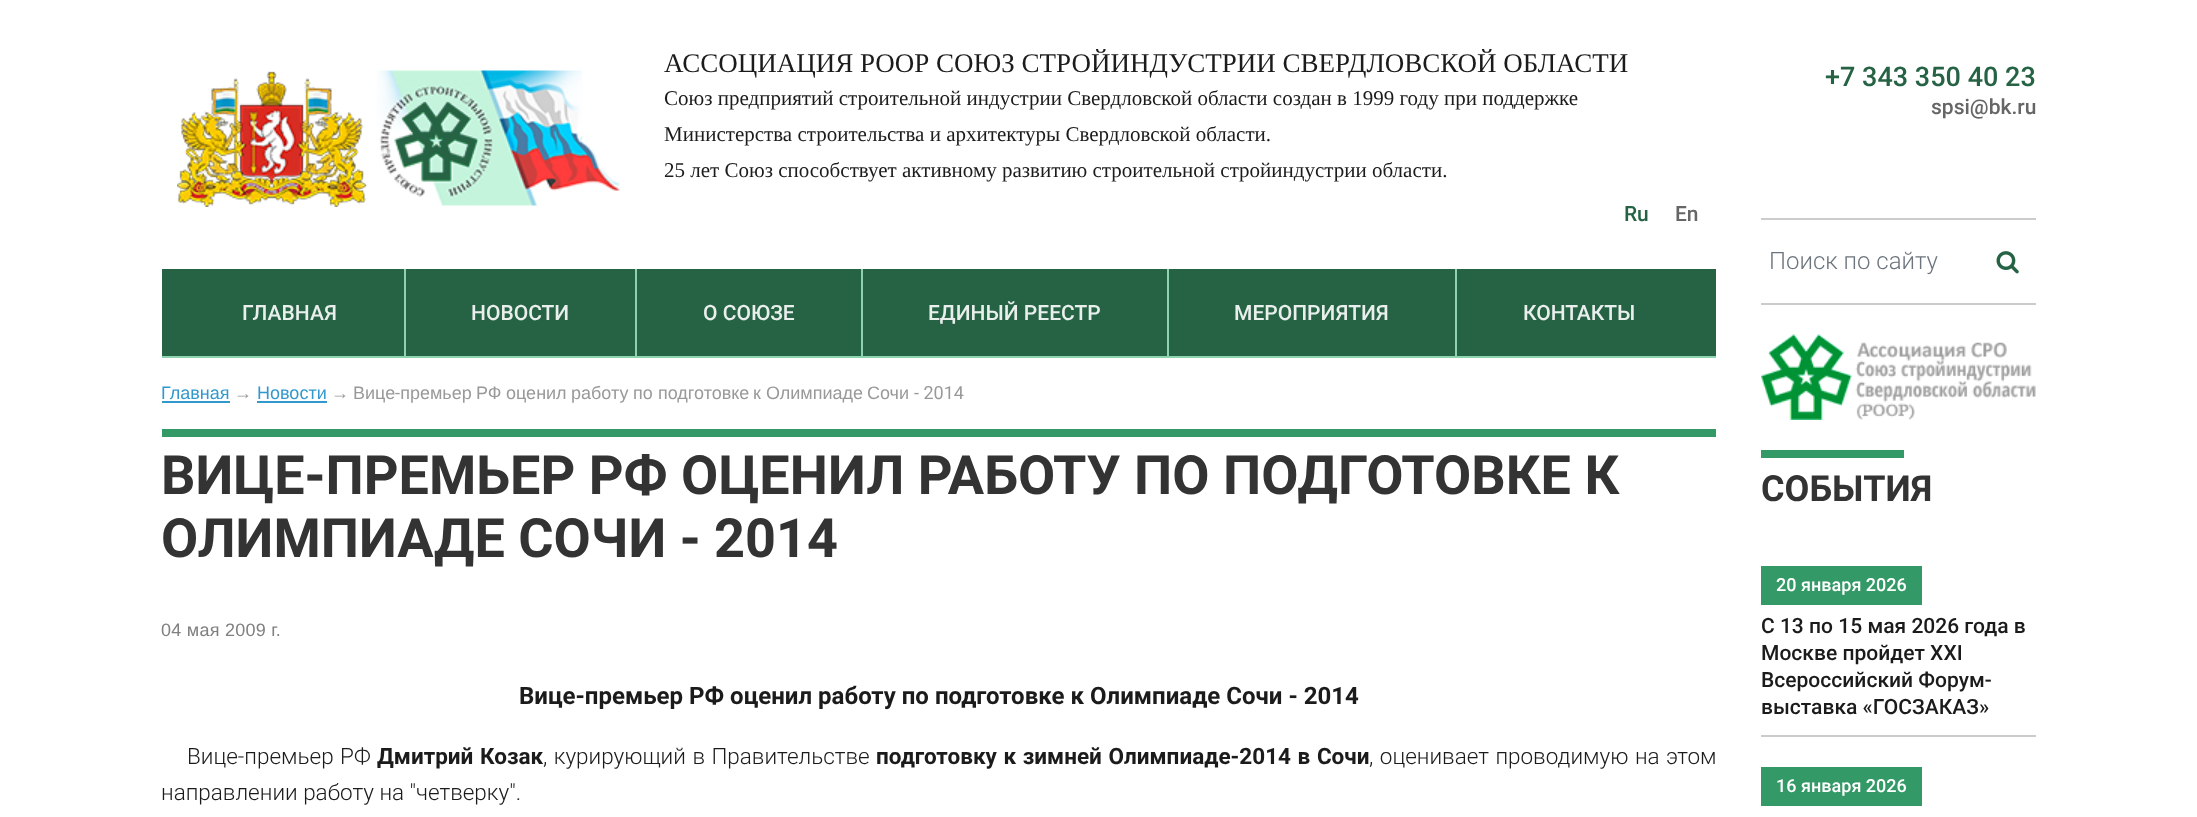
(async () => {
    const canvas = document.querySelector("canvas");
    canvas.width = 2197;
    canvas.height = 817;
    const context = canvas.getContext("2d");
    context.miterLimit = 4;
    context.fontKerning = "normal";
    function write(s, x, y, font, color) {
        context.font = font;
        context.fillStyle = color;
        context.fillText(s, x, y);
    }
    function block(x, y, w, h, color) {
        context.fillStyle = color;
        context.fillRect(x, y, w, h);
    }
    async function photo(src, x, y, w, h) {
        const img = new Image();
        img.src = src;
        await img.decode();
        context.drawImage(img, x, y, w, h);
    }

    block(0, 0, 2197, 817, "rgb(255, 255, 255)");
    await photo("media/1.png", 177, 70, 443, 137);
    write("АССОЦИАЦИЯ РООР СОЮЗ СТРОЙИНДУСТРИИ СВЕРДЛОВСКОЙ ОБЛАСТИ", 664, 72, "27px Liberation Serif", "rgb(27, 27, 27)");
    write("Союз предприятий строительной индустрии Свердловской области создан в 1999 году при поддержке", 664, 105, "21px Liberation Serif", "rgb(27, 27, 27)");
    write("Министерства строительства и архитектуры Свердловской области.", 664, 141, "21px Liberation Serif", "rgb(27, 27, 27)");
    write("25 лет Союз способствует активному развитию строительной стройиндустрии области.", 664, 177, "21px Liberation Serif", "rgb(27, 27, 27)");
    write("Ru", 1624, 221, "500 21px Roboto", "rgb(38, 98, 68)");
    write("En", 1675, 221, "500 21px Roboto", "rgb(102, 102, 102)");
    block(162, 269, 1554, 87, "rgb(38, 98, 68)");
    block(162, 356, 1554, 2, "rgb(141, 211, 176)");
    block(404, 269, 2, 87, "rgb(141, 211, 176)");
    write("ГЛАВНАЯ", 242, 320, "500 21px Roboto", "rgb(233, 239, 236)");
    block(635, 269, 2, 87, "rgb(141, 211, 176)");
    write("НОВОСТИ", 471, 320, "500 21px Roboto", "rgb(233, 239, 236)");
    block(861, 269, 2, 87, "rgb(141, 211, 176)");
    write("О СОЮЗЕ", 703, 320, "500 21px Roboto", "rgb(233, 239, 236)");
    block(1167, 269, 2, 87, "rgb(141, 211, 176)");
    write("ЕДИНЫЙ РЕЕСТР", 928, 320, "500 21px Roboto", "rgb(233, 239, 236)");
    block(1455, 269, 2, 87, "rgb(141, 211, 176)");
    write("МЕРОПРИЯТИЯ", 1234, 320, "500 21px Roboto", "rgb(233, 239, 236)");
    write("КОНТАКТЫ", 1523, 320, "500 21px Roboto", "rgb(233, 239, 236)");
    write("Главная", 161, 399, "18px Liberation Sans", "rgb(51, 153, 204)");
    block(162, 401, 68, 2, "rgb(51, 153, 204)");
    write("Новости", 257, 399, "18px Liberation Sans", "rgb(51, 153, 204)");
    block(257, 401, 70, 2, "rgb(51, 153, 204)");
    write("Вице премьер", 353, 399, "18px Liberation Sans", "rgb(153, 153, 153)");
    write("РФ", 476, 399, "18px Liberation Sans", "rgb(153, 153, 153)");
    write("оценил", 506, 399, "18px Liberation Sans", "rgb(153, 153, 153)");
    write("работу", 571, 399, "18px Liberation Sans", "rgb(153, 153, 153)");
    write("по", 633, 399, "18px Liberation Sans", "rgb(153, 153, 153)");
    write("подготовке", 658, 399, "18px Liberation Sans", "rgb(153, 153, 153)");
    write("к", 753, 399, "18px Liberation Sans", "rgb(153, 153, 153)");
    write("Олимпиаде", 766, 399, "18px Liberation Sans", "rgb(153, 153, 153)");
    write("Сочи", 867, 399, "18px Liberation Sans", "rgb(153, 153, 153)");
    write("- 2014", 914, 399, "18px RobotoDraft", "rgb(153, 153, 153)");
    write("→", 234, 399, "18px Liberation Sans", "rgb(153, 153, 153)");
    write("→", 331, 399, "18px Liberation Sans", "rgb(153, 153, 153)");
    write("-", 395, 399, "18px RobotoDraft", "rgb(153, 153, 153)");
    block(162, 429, 1554, 8, "rgb(51, 153, 102)");
    write("ВИЦЕ-ПРЕМЬЕР РФ ОЦЕНИЛ РАБОТУ ПО ПОДГОТОВКЕ К", 161, 494, "bold 54px Roboto", "rgb(51, 51, 51)");
    write("ОЛИМПИАДЕ СОЧИ - 2014", 161, 557, "bold 54px Roboto", "rgb(51, 51, 51)");
    context.letterSpacing = "0.25px";
    write("04 мая 2009 г.", 161, 636, "18px Liberation Sans", "rgb(128, 128, 128)");
    context.letterSpacing = "0px";
    write("Вице-премьер РФ оценил работу по подготовке к Олимпиаде Сочи - 2014", 519, 704, "bold 24px Roboto", "rgb(27, 27, 27)");
    context.wordSpacing = "1px";
    write("Вице-премьер РФ", 187, 764, "300 22.5px Roboto", "rgb(27, 27, 27)");
    write("Дмитрий Козак", 377, 764, "bold 22.5px Roboto", "rgb(27, 27, 27)");
    write(", курирующий в Правительстве", 543, 764, "300 22.5px Roboto", "rgb(27, 27, 27)");
    write("подготовку к зимней Олимпиаде-2014 в Сочи", 876, 764, "bold 22.5px Roboto", "rgb(27, 27, 27)");
    write(", оценивает проводимую на этом", 1369, 764, "300 22.5px Roboto", "rgb(27, 27, 27)");
    context.wordSpacing = "0px";
    write("направлении работу на \"четверку\".", 161, 800, "300 22.5px Roboto", "rgb(27, 27, 27)");
    write("+7 343 350 40 23", 1825, 86, "500 27px Roboto", "rgb(38, 98, 68)");
    write("spsi@bk.ru", 1931, 114, "500 21px Roboto", "rgb(102, 102, 102)");
    block(1761, 218, 275, 2, "rgb(204, 204, 204)");
    block(1761, 303, 275, 2, "rgb(204, 204, 204)");
    write("Поиск по сайту", 1769, 269, "300 24px Roboto", "rgb(108, 117, 125)");
    await photo("media/2.png", 1996, 251, 23, 23);
    await photo("media/3.png", 1761, 334, 275, 86);
    block(1761, 450, 143, 8, "rgb(51, 153, 102)");
    write("СОБЫТИЯ", 1761, 501, "bold 36px Roboto", "rgb(51, 51, 51)");
    block(1761, 735, 275, 2, "rgb(204, 204, 204)");
    block(1761, 566, 161, 39, "rgb(51, 153, 102)");
    write("20 января 2026", 1776, 591, "500 18px Roboto", "rgb(255, 255, 255)");
    write("С 13 по 15 мая 2026 года в", 1761, 633, "500 21px Roboto", "rgb(27, 27, 27)");
    write("Москве пройдет XXI", 1761, 660, "500 21px Roboto", "rgb(27, 27, 27)");
    write("Всероссийский Форум-", 1761, 687, "500 21px Roboto", "rgb(27, 27, 27)");
    write("выставка «ГОСЗАКАЗ»", 1761, 714, "500 21px Roboto", "rgb(27, 27, 27)");
    block(1761, 767, 161, 39, "rgb(51, 153, 102)");
    write("16 января 2026", 1776, 792, "500 18px Roboto", "rgb(255, 255, 255)");
})();
